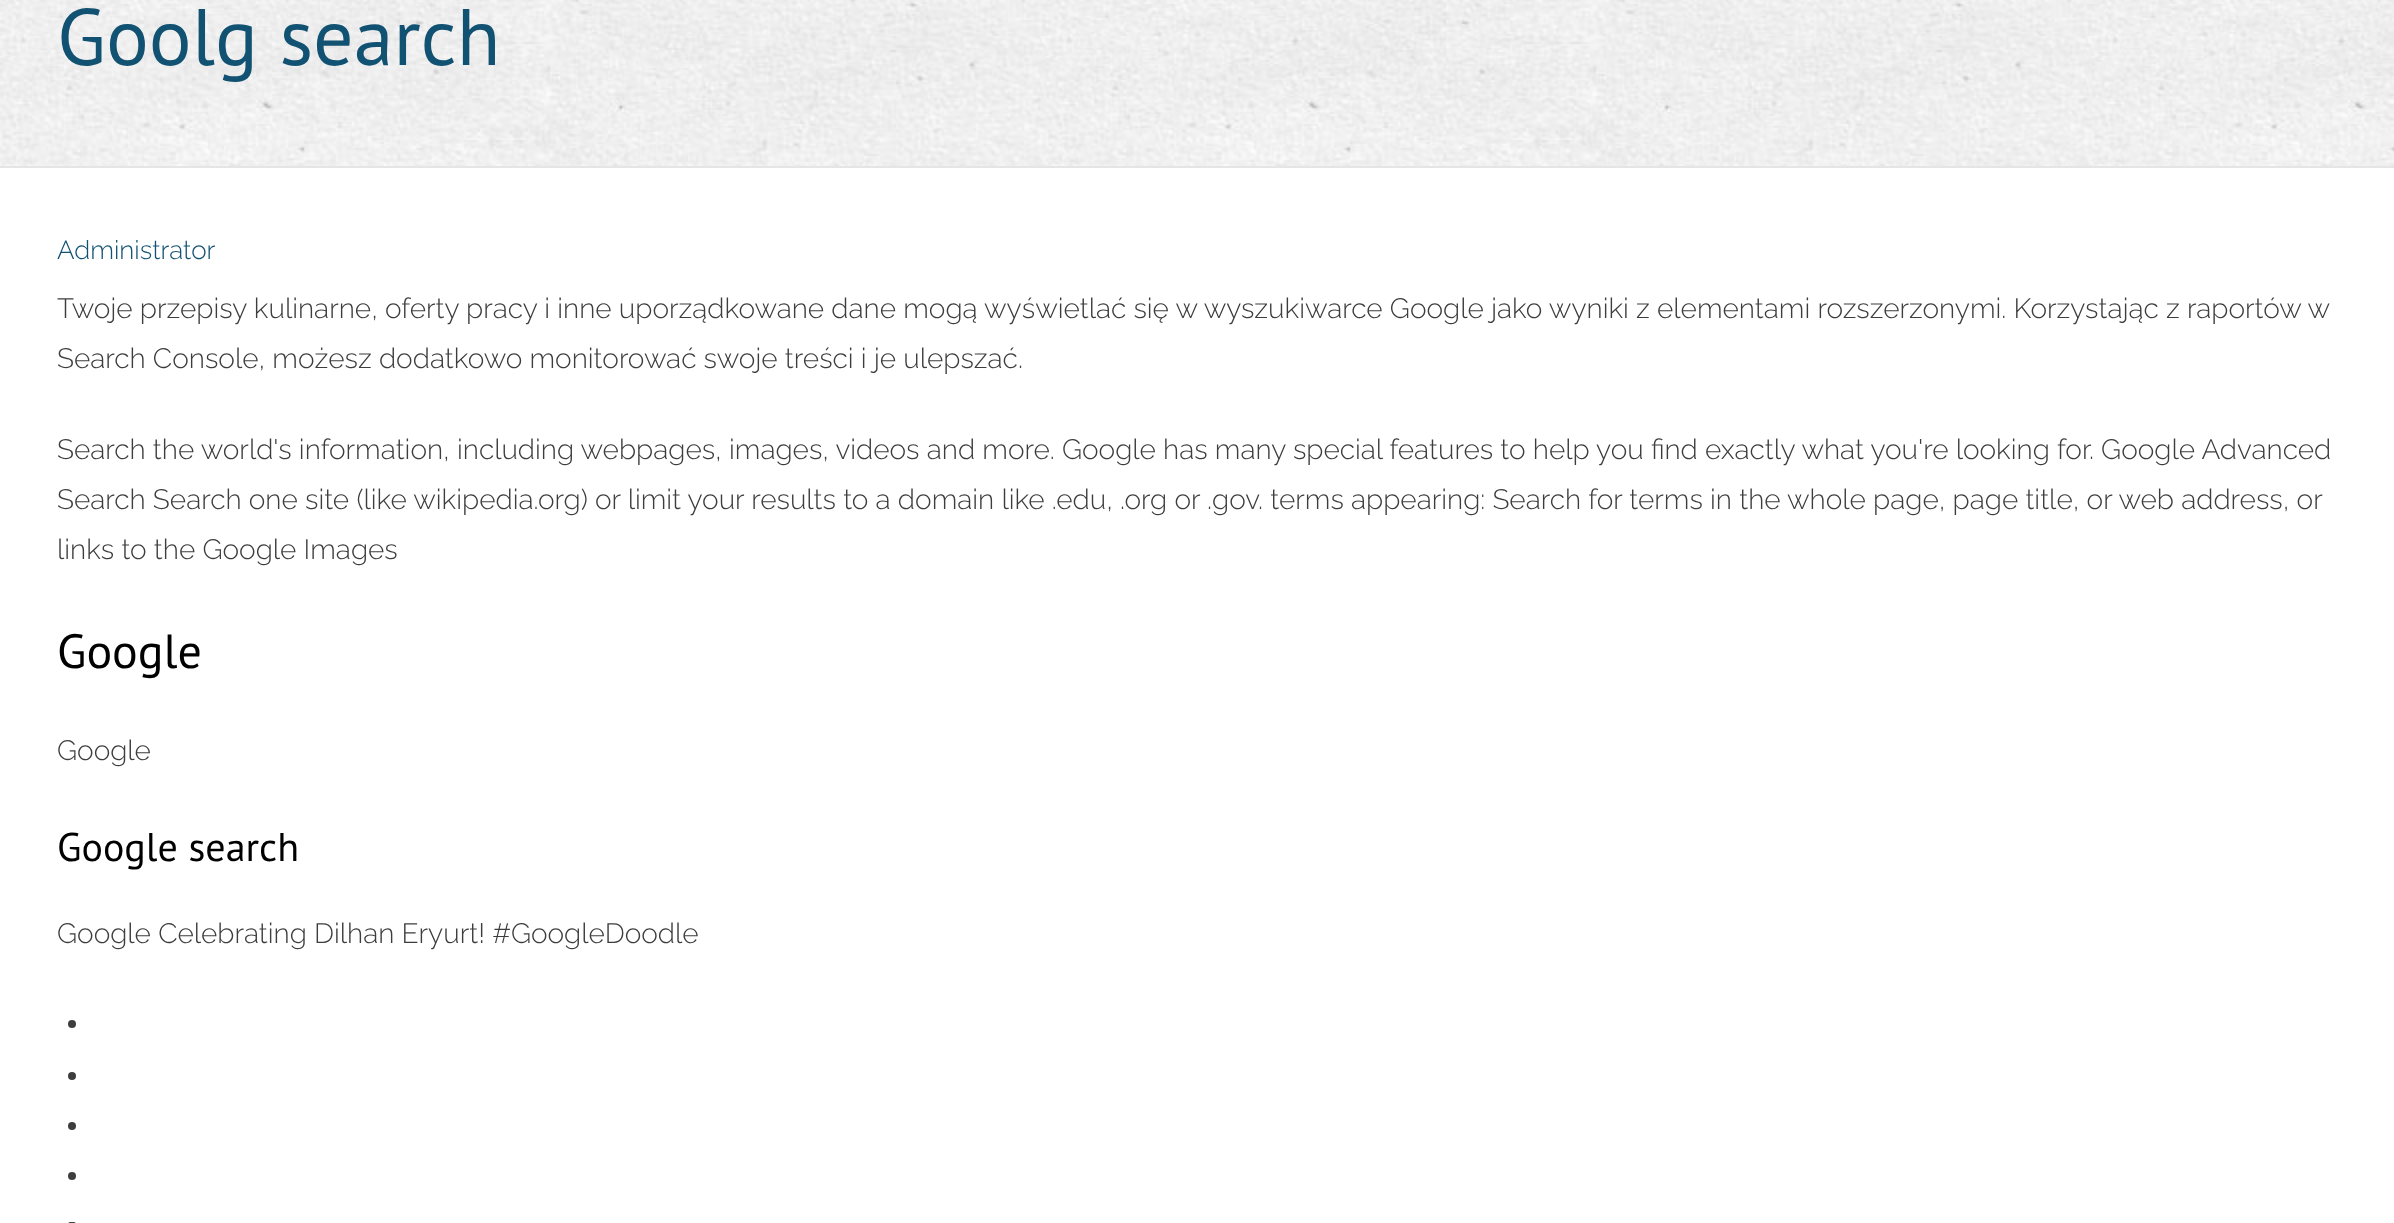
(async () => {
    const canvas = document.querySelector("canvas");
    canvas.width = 2394;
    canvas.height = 1223;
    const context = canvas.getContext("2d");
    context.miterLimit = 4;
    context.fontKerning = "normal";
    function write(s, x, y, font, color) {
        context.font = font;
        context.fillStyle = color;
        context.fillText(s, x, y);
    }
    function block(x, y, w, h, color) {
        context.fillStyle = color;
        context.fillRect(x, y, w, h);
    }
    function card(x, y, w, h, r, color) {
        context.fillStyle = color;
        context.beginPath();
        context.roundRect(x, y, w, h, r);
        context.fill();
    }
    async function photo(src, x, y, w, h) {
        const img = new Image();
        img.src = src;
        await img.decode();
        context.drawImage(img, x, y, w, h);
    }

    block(0, 0, 2394, 1223, "rgb(255, 255, 255)");
    await photo("media/1.png", 0, 0, 2394, 166);
    block(0, 166, 2394, 2, "rgb(229, 229, 229)");
    write("Goolg search", 57, 65, "80px PT Sans", "rgb(17, 81, 114)");
    write("Administrator", 57, 259, "300 26px Raleway", "rgb(17, 81, 114)");
    write("Twoje przepisy kulinarne, oferty pracy i inne uporządkowane dane mogą wyświetlać się w wyszukiwarce Google jako wyniki z elementami rozszerzonymi. Korzystając z raportów w", 57, 318, "300 28px Raleway", "rgb(61, 61, 61)");
    write("Search Console, możesz dodatkowo monitorować swoje treści i je ulepszać.", 57, 368, "300 28px Raleway", "rgb(61, 61, 61)");
    write("Search the world's information, including webpages, images, videos and more. Google has many special features to help you find exactly what you're looking for. Google Advanced", 57, 459, "300 28px Raleway", "rgb(61, 61, 61)");
    write("Search Search one site (like wikipedia.org) or limit your results to a domain like .edu, .org or .gov. terms appearing: Search for terms in the whole page, page title, or web address, or", 57, 509, "300 28px Raleway", "rgb(61, 61, 61)");
    write("links to the Google Images", 57, 559, "300 28px Raleway", "rgb(61, 61, 61)");
    write("Google", 57, 668, "48px PT Sans", "rgb(0, 0, 0)");
    write("Google", 57, 760, "300 28px Raleway", "rgb(61, 61, 61)");
    write("Google search", 57, 861, "40px PT Sans", "rgb(0, 0, 0)");
    write("Google Celebrating Dilhan Eryurt! #GoogleDoodle", 57, 943, "300 28px Raleway", "rgb(61, 61, 61)");
    context.beginPath();
    context.arc(72, 1024, 4, 0, Math.PI * 2);
    context.fill();
    context.beginPath();
    context.arc(72, 1076, 4, 0, Math.PI * 2);
    context.fill();
    context.beginPath();
    context.arc(72, 1126, 4, 0, Math.PI * 2);
    context.fill();
    context.beginPath();
    context.arc(72, 1176, 4, 0, Math.PI * 2);
    context.fill();
    card(68, 1222, 8, 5, 4, "rgb(61, 61, 61)");
})();
